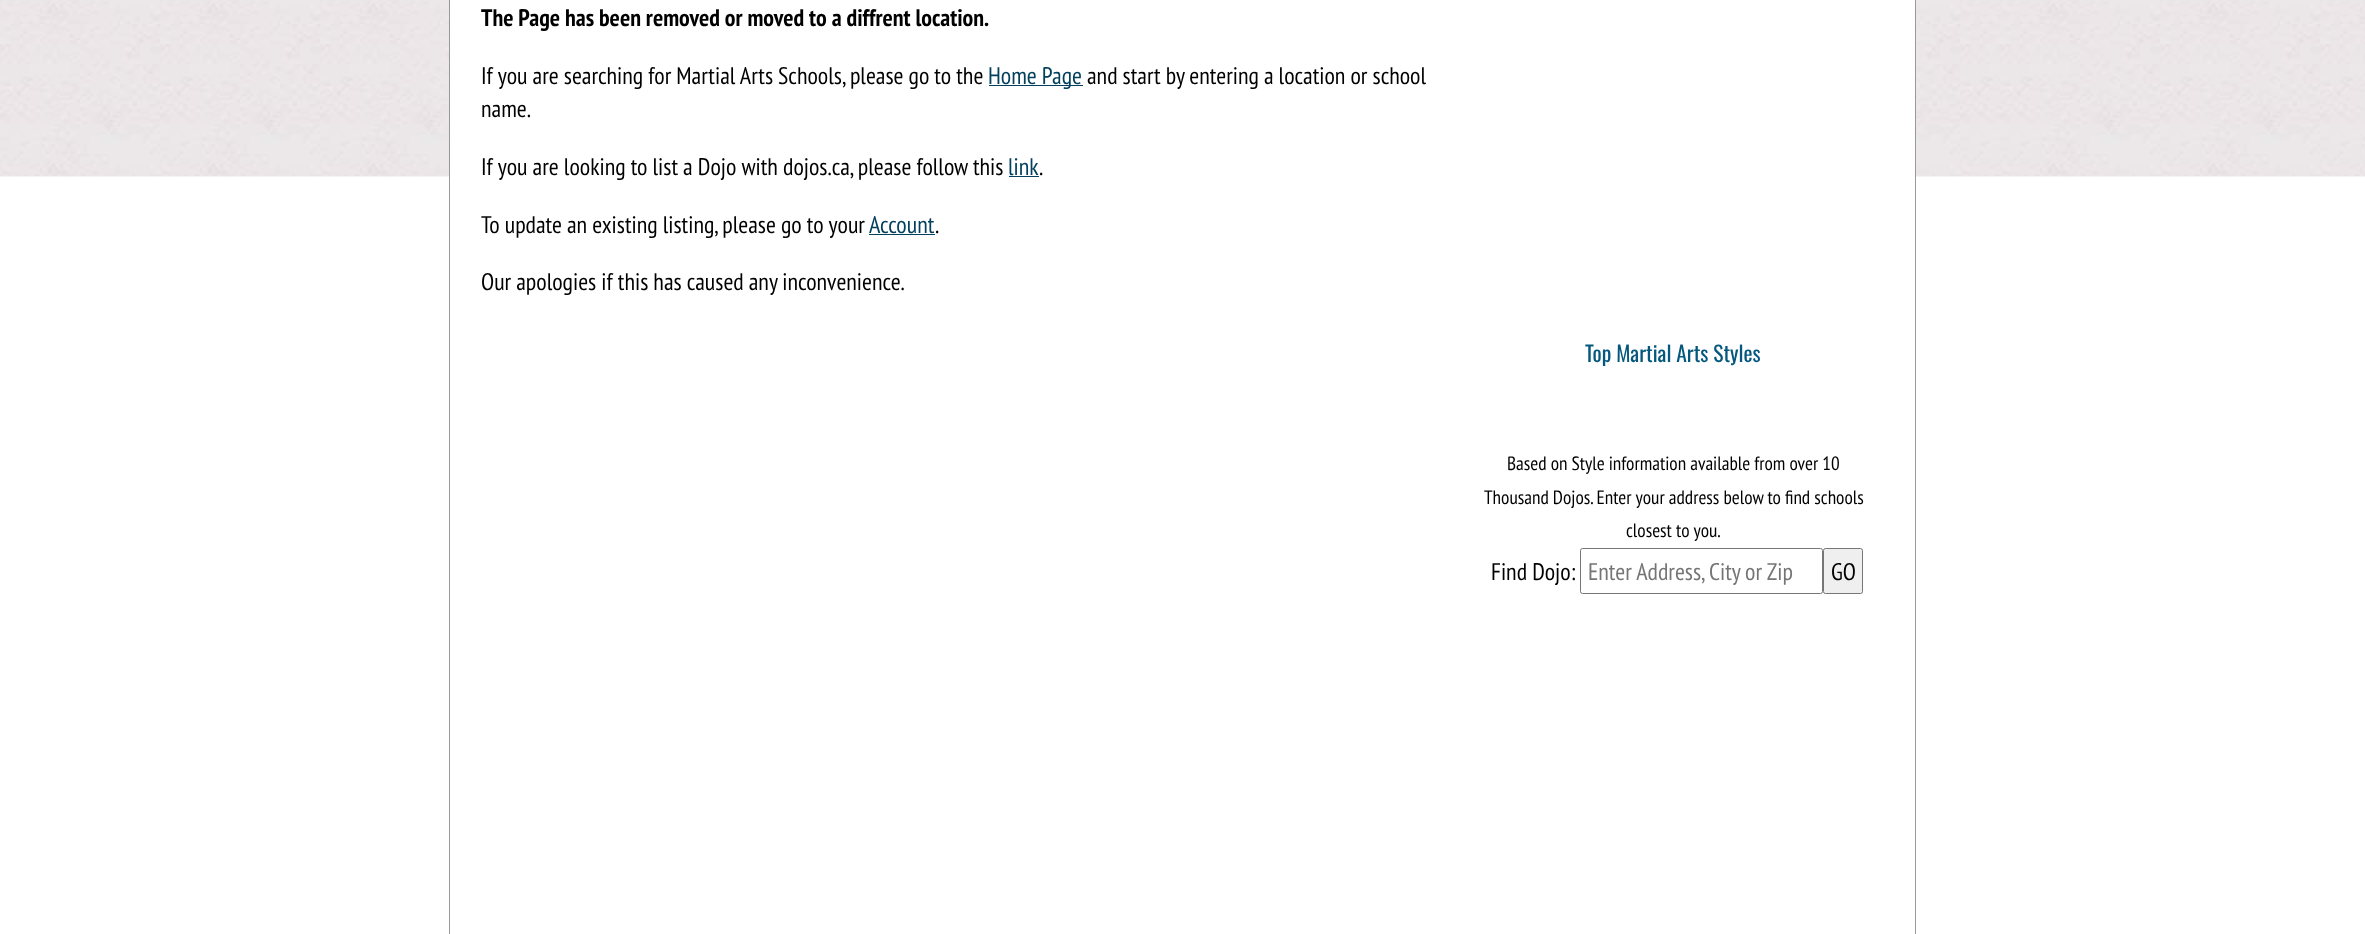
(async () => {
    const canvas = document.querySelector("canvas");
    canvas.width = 2365;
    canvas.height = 934;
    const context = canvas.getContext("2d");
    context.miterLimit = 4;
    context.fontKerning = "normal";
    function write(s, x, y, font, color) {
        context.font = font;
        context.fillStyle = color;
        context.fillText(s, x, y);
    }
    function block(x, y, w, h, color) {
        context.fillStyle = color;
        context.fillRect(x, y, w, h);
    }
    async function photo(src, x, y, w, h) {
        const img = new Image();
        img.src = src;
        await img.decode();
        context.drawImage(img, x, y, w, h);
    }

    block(0, 0, 2365, 934, "rgb(255, 255, 255)");
    await photo("media/1.png", 0, 0, 2365, 177);
    block(450, 0, 1465, 177, "rgb(255, 255, 255)");
    context.strokeStyle = "rgb(153, 153, 153)";
    context.strokeRect(449.5, -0.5, 1466, 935);
    write("The Page has been removed or moved to a diffrent location.", 481, 26, "bold 24px PT Sans Narrow", "rgb(0, 0, 0)");
    write("If you are searching for Martial Arts Schools, please go to the", 481, 84, "24px PT Sans Narrow", "rgb(0, 0, 0)");
    block(989, 85, 94, 1, "rgb(3, 64, 93)");
    write("Home Page", 988, 84, "24px PT Sans Narrow", "rgb(3, 64, 93)");
    write("and start by entering a location or school", 1087, 84, "24px PT Sans Narrow", "rgb(0, 0, 0)");
    write("name.", 481, 117, "24px PT Sans Narrow", "rgb(0, 0, 0)");
    write("If you are looking to list a Dojo with dojos.ca, please follow this", 481, 175, "24px PT Sans Narrow", "rgb(0, 0, 0)");
    write("link", 1008, 175, "24px PT Sans Narrow", "rgb(3, 64, 93)");
    block(1009, 176, 30, 1, "rgb(3, 64, 93)");
    write(".", 1039, 175, "24px PT Sans Narrow", "rgb(0, 0, 0)");
    write("To update an existing listing, please go to your", 481, 233, "24px PT Sans Narrow", "rgb(0, 0, 0)");
    write("Account", 869, 233, "24px PT Sans Narrow", "rgb(3, 64, 93)");
    block(869, 234, 66, 1, "rgb(3, 64, 93)");
    write(".", 935, 233, "24px PT Sans Narrow", "rgb(0, 0, 0)");
    write("Our apologies if this has caused any inconvenience.", 481, 290, "24px PT Sans Narrow", "rgb(0, 0, 0)");
    write("Top Martial Arts Styles", 1585, 362, "21.5px Oswald", "rgb(4, 87, 125)");
    write("Based on Style information available from over 10", 1507, 470, "19.25px PT Sans Narrow", "rgb(0, 0, 0)");
    write("Thousand Dojos. Enter your address below to find schools", 1484, 504, "19.25px PT Sans Narrow", "rgb(0, 0, 0)");
    write("closest to you.", 1626, 537, "19.25px PT Sans Narrow", "rgb(0, 0, 0)");
    write("Find Dojo:", 1491, 580, "24px PT Sans Narrow", "rgb(0, 0, 0)");
    context.beginPath();
    context.roundRect(1580.5, 548.5, 242, 45, 2);
    context.strokeStyle = "rgb(118, 118, 118)";
    context.stroke();
    write("Enter Address, City or Zip", 1588, 580, "24px PT Sans Narrow", "rgb(117, 117, 117)");
    context.fillStyle = "rgb(239, 239, 239)";
    context.beginPath();
    context.roundRect(1823.5, 548.5, 39, 45, 2);
    context.fill();
    context.stroke();
    write("GO", 1831, 580, "24px PT Sans Narrow", "rgb(0, 0, 0)");
})();
